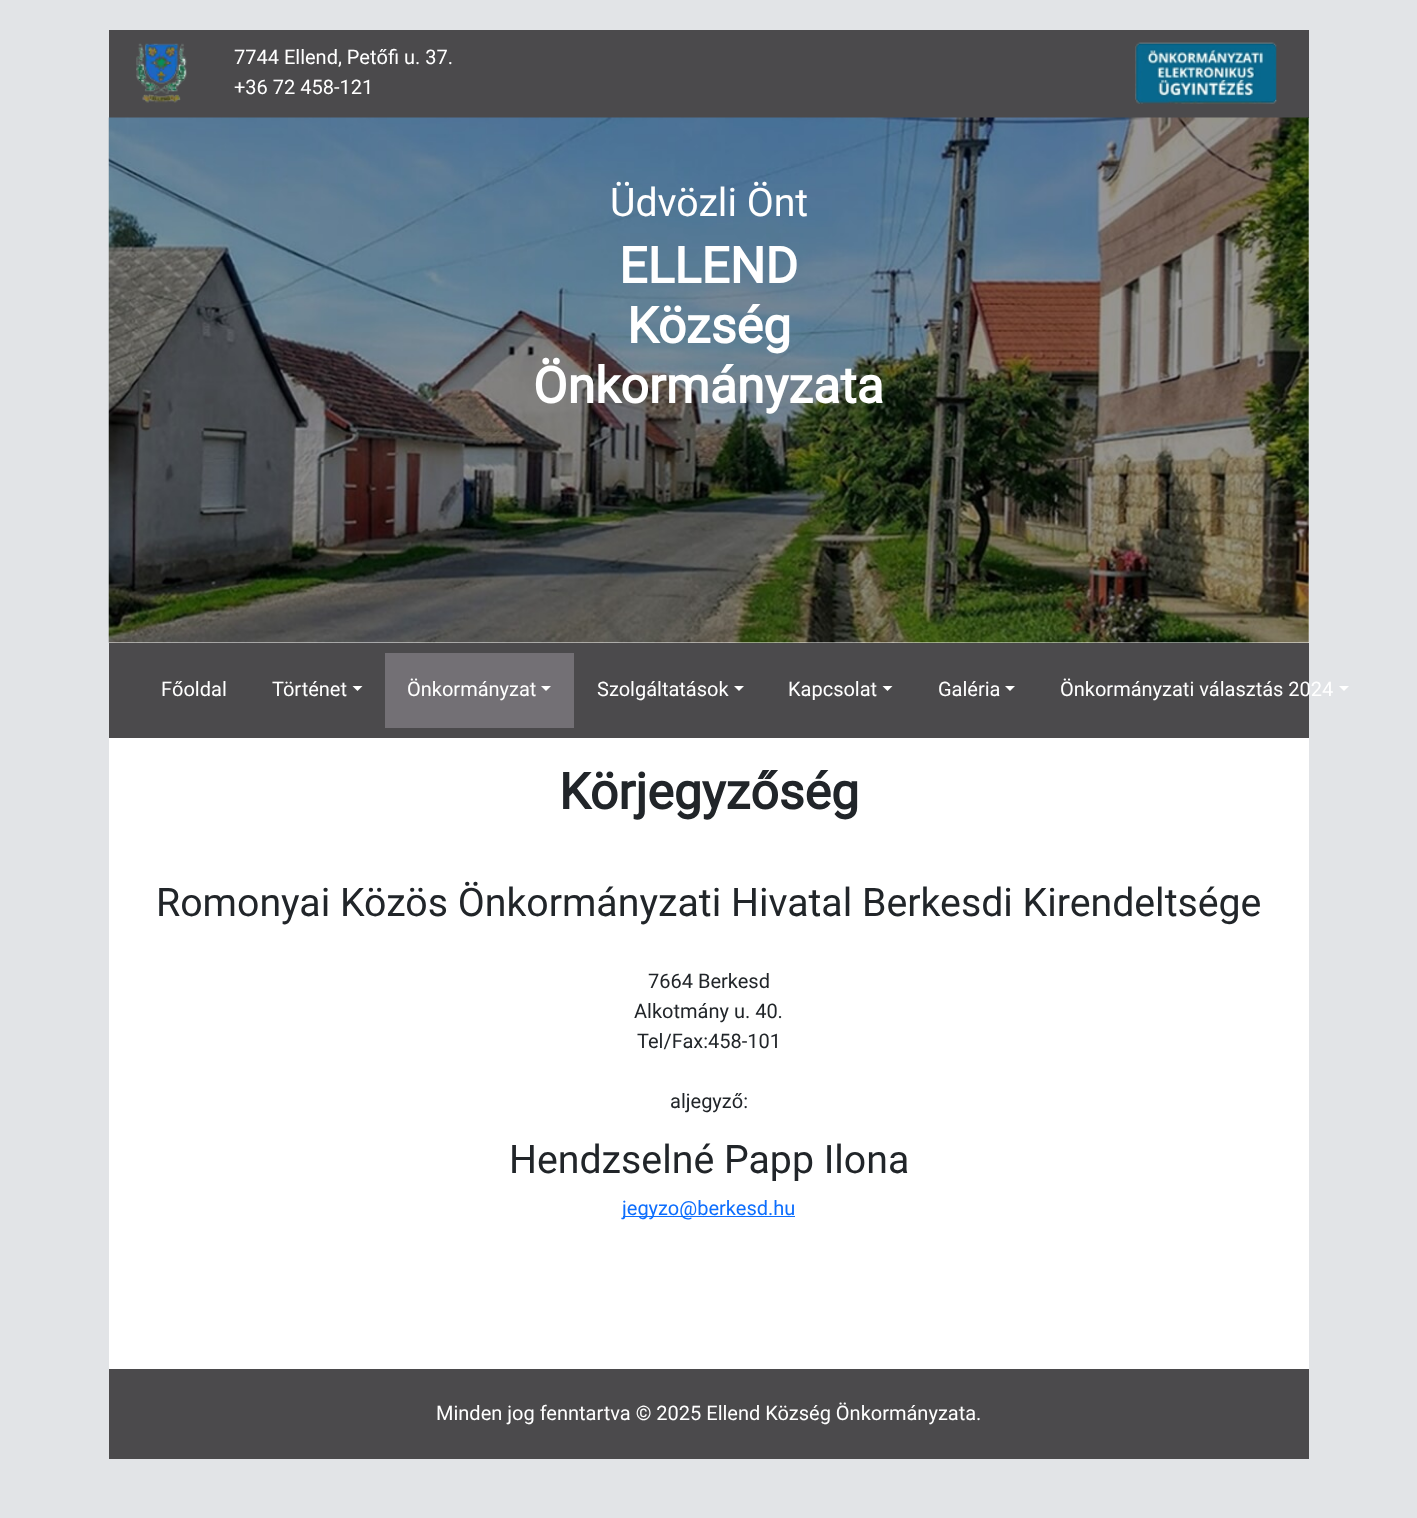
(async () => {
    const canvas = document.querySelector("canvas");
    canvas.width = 1417;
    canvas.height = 1518;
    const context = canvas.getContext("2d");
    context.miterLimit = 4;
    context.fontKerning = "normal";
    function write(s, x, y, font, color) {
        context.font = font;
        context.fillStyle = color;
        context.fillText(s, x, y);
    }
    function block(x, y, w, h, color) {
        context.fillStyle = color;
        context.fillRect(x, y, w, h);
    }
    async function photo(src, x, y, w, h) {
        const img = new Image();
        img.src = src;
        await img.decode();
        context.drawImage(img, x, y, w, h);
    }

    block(0, 0, 1417, 1518, "rgb(226, 228, 231)");
    block(109, 118, 1200, 525, "rgb(255, 255, 255)");
    block(109, 30, 1200, 88, "rgb(75, 74, 76)");
    await photo("media/1.png", 136, 43, 51, 60);
    write("7744 Ellend, Petőfi u. 37.", 234, 64, "20px Roboto", "rgb(255, 255, 255)");
    write("+36 72 458-121", 234, 94, "20px Roboto", "rgb(255, 255, 255)");
    await photo("media/2.png", 1135, 42, 142, 62);
    await photo("media/3.png", 108, 117, 1201, 526);
    write("Üdvözli Önt", 610, 216, "39.25px Roboto", "rgb(255, 255, 255)");
    write("ELLEND", 619, 283, "bold 50px Roboto", "rgb(255, 255, 255)");
    write("Község", 627, 343, "bold 50px Roboto", "rgb(255, 255, 255)");
    write("Önkormányzata", 533, 403, "bold 50px Roboto", "rgb(255, 255, 255)");
    block(109, 738, 1200, 631, "rgb(255, 255, 255)");
    block(109, 643, 1200, 95, "rgb(75, 74, 76)");
    write("Főoldal", 161, 696, "20px Roboto", "rgb(255, 255, 255)");
    write("Történet", 272, 696, "20px Roboto", "rgb(255, 255, 255)");
    context.beginPath();
    context.moveTo(352.5, 686);
    context.lineTo(362.5, 686);
    context.lineTo(357.5, 691);
    context.closePath();
    context.fill();
    block(385, 653, 189, 75, "rgb(115, 112, 117)");
    write("Önkormányzat", 407, 696, "20px Roboto", "rgb(255, 255, 255)");
    context.beginPath();
    context.moveTo(541, 686);
    context.lineTo(551, 686);
    context.lineTo(546, 691);
    context.closePath();
    context.fill();
    write("Szolgáltatások", 597, 696, "20px Roboto", "rgb(255, 255, 255)");
    context.beginPath();
    context.moveTo(734, 686);
    context.lineTo(744, 686);
    context.lineTo(739, 691);
    context.closePath();
    context.fill();
    write("Kapcsolat", 788, 696, "20px Roboto", "rgb(255, 255, 255)");
    context.beginPath();
    context.moveTo(882.5, 686);
    context.lineTo(892.5, 686);
    context.lineTo(887.5, 691);
    context.closePath();
    context.fill();
    write("Galéria", 938, 696, "20px Roboto", "rgb(255, 255, 255)");
    context.beginPath();
    context.moveTo(1005, 686);
    context.lineTo(1015, 686);
    context.lineTo(1010, 691);
    context.closePath();
    context.fill();
    write("Önkormányzati választás 2024", 1060, 696, "20px Roboto", "rgb(255, 255, 255)");
    context.beginPath();
    context.moveTo(1339, 686);
    context.lineTo(1349, 686);
    context.lineTo(1344, 691);
    context.closePath();
    context.fill();
    write("Körjegyzőség", 559, 809, "bold 50px Roboto", "rgb(33, 37, 41)");
    write("Romonyai Közös Önkormányzati Hivatal Berkesdi Kirendeltsége", 156, 916, "39.25px Roboto", "rgb(33, 37, 41)");
    write("7664 Berkesd", 648, 988, "20px Roboto", "rgb(33, 37, 41)");
    write("Alkotmány u. 40.", 634, 1018, "20px Roboto", "rgb(33, 37, 41)");
    write("Tel/Fax:458-101", 637, 1048, "20px Roboto", "rgb(33, 37, 41)");
    write("aljegyző:", 670, 1108, "20px Roboto", "rgb(33, 37, 41)");
    write("Hendzselné Papp Ilona", 509, 1173, "39.25px Roboto", "rgb(33, 37, 41)");
    block(623, 1216, 172, 1, "rgb(13, 110, 253)");
    write("jegyzo@berkesd.hu", 622, 1215, "20px Roboto", "rgb(13, 110, 253)");
    block(109, 1369, 1200, 90, "rgb(75, 74, 76)");
    write("Minden jog fenntartva © 2025 Ellend Község Önkormányzata.", 436, 1420, "20px Roboto", "rgb(255, 255, 255)");
})();
